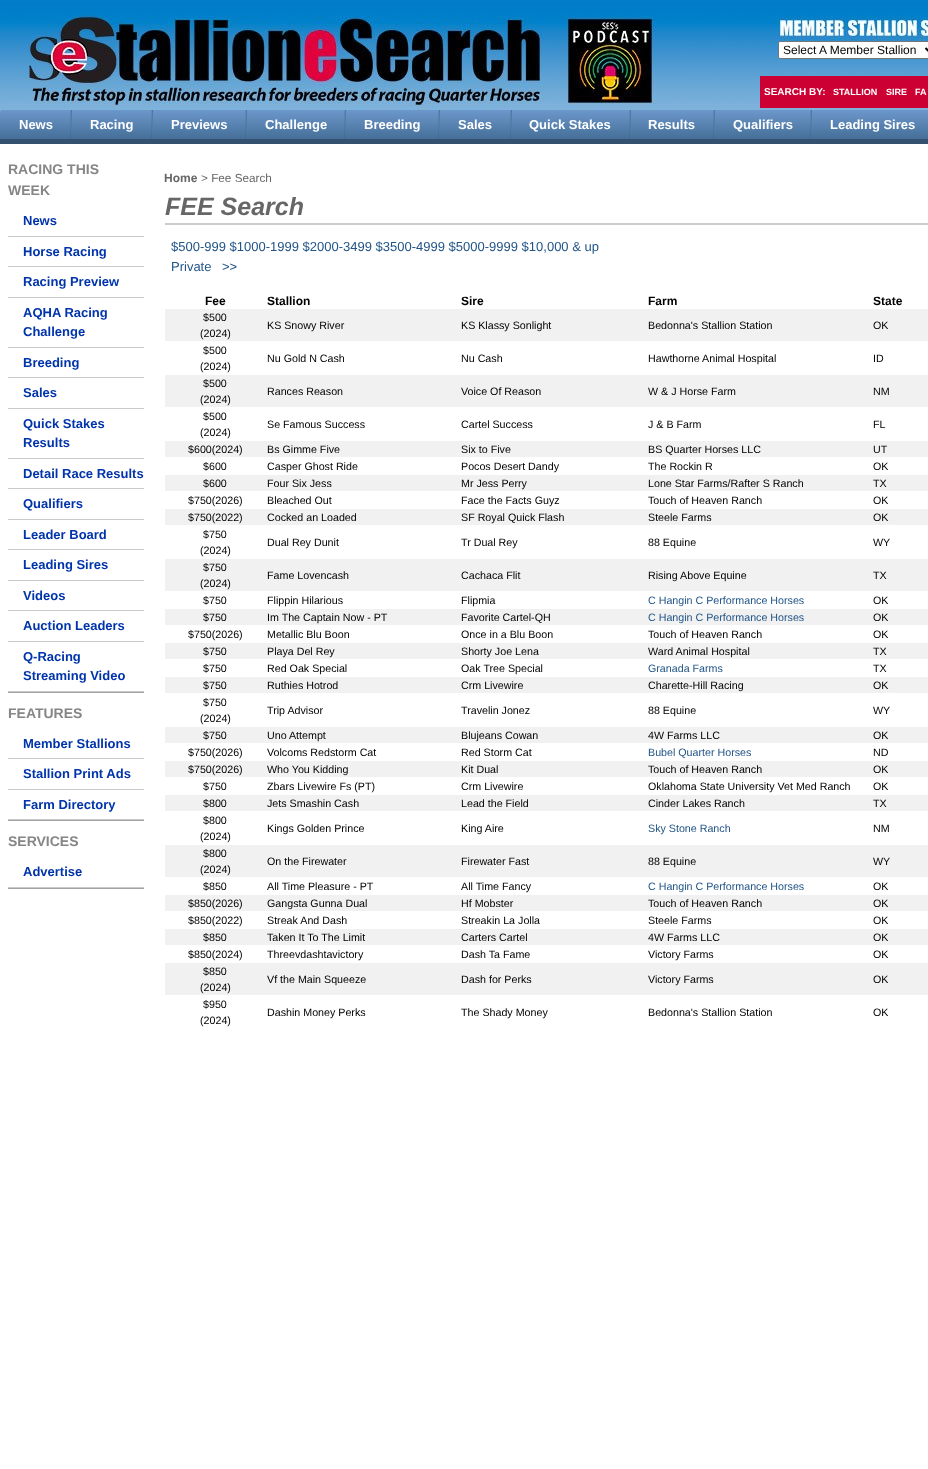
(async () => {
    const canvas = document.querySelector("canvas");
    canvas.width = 928;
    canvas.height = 1469;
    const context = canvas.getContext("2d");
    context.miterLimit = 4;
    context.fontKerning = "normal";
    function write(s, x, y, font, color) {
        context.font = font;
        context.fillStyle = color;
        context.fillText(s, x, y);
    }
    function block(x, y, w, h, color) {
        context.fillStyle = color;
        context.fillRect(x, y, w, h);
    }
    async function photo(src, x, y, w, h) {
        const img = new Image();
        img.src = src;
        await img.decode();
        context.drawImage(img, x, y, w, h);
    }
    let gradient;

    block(0, 0, 928, 1469, "rgb(255, 255, 255)");
    await photo("media/1.png", 0, 0, 928, 112);
    context.beginPath();
    context.roundRect(778.5, 41.5, 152, 17, 1.5);
    context.fill();
    context.strokeStyle = "rgb(118, 118, 118)";
    context.stroke();
    context.beginPath();
    context.moveTo(925.5, 48);
    context.lineTo(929.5, 52);
    context.lineTo(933.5, 48);
    context.strokeStyle = "rgb(0, 0, 0)";
    context.lineWidth = 2;
    context.stroke();
    write("Select A Member Stallion", 783, 54, "12px Liberation Sans", "rgb(0, 0, 0)");
    block(760, 76, 168, 32, "rgb(204, 0, 51)");
    write("SEARCH BY:", 764, 95, "bold 10px Liberation Sans", "rgb(255, 255, 255)");
    write("STALLION", 833, 95, "bold 9px Liberation Sans", "rgb(255, 255, 255)");
    write("SIRE", 886, 95, "bold 9px Liberation Sans", "rgb(255, 255, 255)");
    write("FA", 915, 95, "bold 9px Liberation Sans", "rgb(255, 255, 255)");
    gradient = context.createLinearGradient(507, 110, 507, 139);
    gradient.addColorStop(0, "rgb(108, 151, 203)");
    gradient.addColorStop(1, "rgb(69, 111, 152)");
    context.fillStyle = gradient;
    context.beginPath();
    context.moveTo(2, 110);
    context.lineTo(928, 110);
    context.bezierCurveTo(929, 110, 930, 111, 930, 112);
    context.lineTo(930, 139);
    context.lineTo(0, 139);
    context.lineTo(0, 112);
    context.bezierCurveTo(0, 111, 1, 110, 2, 110);
    context.closePath();
    context.fill();
    block(0, 139, 928, 5, "rgb(52, 82, 112)");
    write("News", 19, 129, "bold 13px Liberation Sans", "rgb(255, 255, 255)");
    block(70, 110, 1, 29, "rgba(50, 50, 50, 0.1)");
    gradient = context.createLinearGradient(72, 110, 72, 139);
    gradient.addColorStop(0, "rgb(76, 118, 162)");
    gradient.addColorStop(1, "rgba(76, 118, 162, 0)");
    context.fillStyle = gradient;
    context.fillRect(71, 110, 1, 20);
    write("Racing", 90, 129, "bold 13px Liberation Sans", "rgb(255, 255, 255)");
    block(151, 110, 1, 29, "rgba(50, 50, 50, 0.1)");
    gradient = context.createLinearGradient(153, 110, 153, 139);
    gradient.addColorStop(0, "rgb(76, 118, 162)");
    gradient.addColorStop(1, "rgba(76, 118, 162, 0)");
    context.fillStyle = gradient;
    context.fillRect(152, 110, 1, 20);
    write("Previews", 171, 129, "bold 13px Liberation Sans", "rgb(255, 255, 255)");
    block(245, 110, 1, 29, "rgba(50, 50, 50, 0.1)");
    gradient = context.createLinearGradient(247, 110, 247, 139);
    gradient.addColorStop(0, "rgb(76, 118, 162)");
    gradient.addColorStop(1, "rgba(76, 118, 162, 0)");
    context.fillStyle = gradient;
    context.fillRect(246, 110, 1, 20);
    write("Challenge", 265, 129, "bold 13px Liberation Sans", "rgb(255, 255, 255)");
    block(344, 110, 1, 29, "rgba(50, 50, 50, 0.1)");
    gradient = context.createLinearGradient(346, 110, 346, 139);
    gradient.addColorStop(0, "rgb(76, 118, 162)");
    gradient.addColorStop(1, "rgba(76, 118, 162, 0)");
    context.fillStyle = gradient;
    context.fillRect(345, 110, 1, 20);
    write("Breeding", 364, 129, "bold 13px Liberation Sans", "rgb(255, 255, 255)");
    block(438, 110, 1, 29, "rgba(50, 50, 50, 0.1)");
    gradient = context.createLinearGradient(440, 110, 440, 139);
    gradient.addColorStop(0, "rgb(76, 118, 162)");
    gradient.addColorStop(1, "rgba(76, 118, 162, 0)");
    context.fillStyle = gradient;
    context.fillRect(439, 110, 1, 20);
    write("Sales", 458, 129, "bold 13px Liberation Sans", "rgb(255, 255, 255)");
    block(510, 110, 1, 29, "rgba(50, 50, 50, 0.1)");
    gradient = context.createLinearGradient(512, 110, 512, 139);
    gradient.addColorStop(0, "rgb(76, 118, 162)");
    gradient.addColorStop(1, "rgba(76, 118, 162, 0)");
    context.fillStyle = gradient;
    context.fillRect(511, 110, 1, 20);
    write("Quick Stakes", 529, 129, "bold 13px Liberation Sans", "rgb(255, 255, 255)");
    block(629, 110, 1, 29, "rgba(50, 50, 50, 0.1)");
    gradient = context.createLinearGradient(631, 110, 631, 139);
    gradient.addColorStop(0, "rgb(76, 118, 162)");
    gradient.addColorStop(1, "rgba(76, 118, 162, 0)");
    context.fillStyle = gradient;
    context.fillRect(630, 110, 1, 20);
    write("Results", 648, 129, "bold 13px Liberation Sans", "rgb(255, 255, 255)");
    block(713, 110, 1, 29, "rgba(50, 50, 50, 0.1)");
    gradient = context.createLinearGradient(715, 110, 715, 139);
    gradient.addColorStop(0, "rgb(76, 118, 162)");
    gradient.addColorStop(1, "rgba(76, 118, 162, 0)");
    context.fillStyle = gradient;
    context.fillRect(714, 110, 1, 20);
    write("Qualifiers", 733, 129, "bold 13px Liberation Sans", "rgb(255, 255, 255)");
    block(810, 110, 1, 29, "rgba(50, 50, 50, 0.1)");
    gradient = context.createLinearGradient(812, 110, 812, 139);
    gradient.addColorStop(0, "rgb(76, 118, 162)");
    gradient.addColorStop(1, "rgba(76, 118, 162, 0)");
    context.fillStyle = gradient;
    context.fillRect(811, 110, 1, 20);
    write("Leading Sires", 830, 129, "bold 13px Liberation Sans", "rgb(255, 255, 255)");
    write("RACING THIS", 8, 174, "bold 14px Liberation Sans", "rgb(134, 134, 134)");
    write("WEEK", 8, 195, "bold 14px Liberation Sans", "rgb(134, 134, 134)");
    block(8, 692, 136, 1, "rgb(163, 163, 163)");
    block(8, 236, 136, 1, "rgb(202, 202, 202)");
    write("News", 23, 225, "bold 13px Liberation Sans", "rgb(0, 52, 171)");
    block(8, 266, 136, 1, "rgb(202, 202, 202)");
    write("Horse Racing", 23, 256, "bold 13px Liberation Sans", "rgb(0, 52, 171)");
    block(8, 297, 136, 1, "rgb(202, 202, 202)");
    write("Racing Preview", 23, 286, "bold 13px Liberation Sans", "rgb(0, 52, 171)");
    block(8, 347, 136, 1, "rgb(202, 202, 202)");
    write("AQHA Racing", 23, 317, "bold 13px Liberation Sans", "rgb(0, 52, 171)");
    write("Challenge", 23, 336, "bold 13px Liberation Sans", "rgb(0, 52, 171)");
    block(8, 377, 136, 1, "rgb(202, 202, 202)");
    write("Breeding", 23, 367, "bold 13px Liberation Sans", "rgb(0, 52, 171)");
    block(8, 408, 136, 1, "rgb(202, 202, 202)");
    write("Sales", 23, 397, "bold 13px Liberation Sans", "rgb(0, 52, 171)");
    block(8, 458, 136, 1, "rgb(202, 202, 202)");
    write("Quick Stakes", 23, 428, "bold 13px Liberation Sans", "rgb(0, 52, 171)");
    write("Results", 23, 447, "bold 13px Liberation Sans", "rgb(0, 52, 171)");
    block(8, 488, 136, 1, "rgb(202, 202, 202)");
    write("Detail Race Results", 23, 478, "bold 13px Liberation Sans", "rgb(0, 52, 171)");
    block(8, 519, 136, 1, "rgb(202, 202, 202)");
    write("Qualifiers", 23, 508, "bold 13px Liberation Sans", "rgb(0, 52, 171)");
    block(8, 549, 136, 1, "rgb(202, 202, 202)");
    write("Leader Board", 23, 539, "bold 13px Liberation Sans", "rgb(0, 52, 171)");
    block(8, 580, 136, 1, "rgb(202, 202, 202)");
    write("Leading Sires", 23, 569, "bold 13px Liberation Sans", "rgb(0, 52, 171)");
    block(8, 610, 136, 1, "rgb(202, 202, 202)");
    write("Videos", 23, 600, "bold 13px Liberation Sans", "rgb(0, 52, 171)");
    block(8, 641, 136, 1, "rgb(202, 202, 202)");
    write("Auction Leaders", 23, 630, "bold 13px Liberation Sans", "rgb(0, 52, 171)");
    block(8, 691, 136, 1, "rgb(202, 202, 202)");
    write("Q-Racing", 23, 661, "bold 13px Liberation Sans", "rgb(0, 52, 171)");
    write("Streaming Video", 23, 680, "bold 13px Liberation Sans", "rgb(0, 52, 171)");
    write("FEATURES", 8, 718, "bold 14px Liberation Sans", "rgb(134, 134, 134)");
    block(8, 820, 136, 1, "rgb(163, 163, 163)");
    block(8, 758, 136, 1, "rgb(202, 202, 202)");
    write("Member Stallions", 23, 748, "bold 13px Liberation Sans", "rgb(0, 52, 171)");
    block(8, 789, 136, 1, "rgb(202, 202, 202)");
    write("Stallion Print Ads", 23, 778, "bold 13px Liberation Sans", "rgb(0, 52, 171)");
    block(8, 819, 136, 1, "rgb(202, 202, 202)");
    write("Farm Directory", 23, 809, "bold 13px Liberation Sans", "rgb(0, 52, 171)");
    write("SERVICES", 8, 846, "bold 14px Liberation Sans", "rgb(134, 134, 134)");
    block(8, 888, 136, 1, "rgb(163, 163, 163)");
    block(8, 887, 136, 1, "rgb(202, 202, 202)");
    write("Advertise", 23, 876, "bold 13px Liberation Sans", "rgb(0, 52, 171)");
    write("Home", 164, 182, "bold 12px Liberation Sans", "rgb(102, 102, 102)");
    write("> Fee Search", 201, 182, "11.75px Liberation Sans", "rgb(102, 102, 102)");
    block(165, 223, 763, 2, "rgb(204, 204, 204)");
    write("FEE Search", 165, 215, "italic bold 25px Liberation Sans", "rgb(102, 102, 102)");
    write("$500-999 $1000-1999 $2000-3499 $3500-4999 $5000-9999 $10,000 & up", 171, 251, "13px Liberation Sans", "rgb(34, 85, 136)");
    write("Private", 171, 271, "13px Liberation Sans", "rgb(34, 85, 136)");
    write(">>", 222, 271, "13px Liberation Sans", "rgb(34, 85, 136)");
    write("Fee", 205, 305, "bold 12px Liberation Sans", "rgb(0, 0, 0)");
    write("Stallion", 267, 305, "bold 12px Liberation Sans", "rgb(0, 0, 0)");
    write("Sire", 461, 305, "bold 12px Liberation Sans", "rgb(0, 0, 0)");
    write("Farm", 648, 305, "bold 12px Liberation Sans", "rgb(0, 0, 0)");
    write("State", 873, 305, "bold 12px Liberation Sans", "rgb(0, 0, 0)");
    block(165, 309, 763, 32, "rgb(241, 241, 241)");
    write("$500", 203, 321, "10.7px Liberation Sans", "rgb(0, 0, 0)");
    write("(2024)", 200, 337, "10.7px Liberation Sans", "rgb(0, 0, 0)");
    write("KS Snowy River", 267, 329, "10.7px Liberation Sans", "rgb(0, 0, 0)");
    write("KS Klassy Sonlight", 461, 329, "10.7px Liberation Sans", "rgb(0, 0, 0)");
    write("Bedonna's Stallion Station", 648, 329, "10.7px Liberation Sans", "rgb(0, 0, 0)");
    write("OK", 873, 329, "10.7px Liberation Sans", "rgb(0, 0, 0)");
    write("$500", 203, 354, "10.7px Liberation Sans", "rgb(0, 0, 0)");
    write("(2024)", 200, 370, "10.7px Liberation Sans", "rgb(0, 0, 0)");
    write("Nu Gold N Cash", 267, 362, "10.7px Liberation Sans", "rgb(0, 0, 0)");
    write("Nu Cash", 461, 362, "10.7px Liberation Sans", "rgb(0, 0, 0)");
    write("Hawthorne Animal Hospital", 648, 362, "10.7px Liberation Sans", "rgb(0, 0, 0)");
    write("ID", 873, 362, "10.7px Liberation Sans", "rgb(0, 0, 0)");
    block(165, 375, 763, 32, "rgb(241, 241, 241)");
    write("$500", 203, 387, "10.7px Liberation Sans", "rgb(0, 0, 0)");
    write("(2024)", 200, 403, "10.7px Liberation Sans", "rgb(0, 0, 0)");
    write("Rances Reason", 267, 395, "10.7px Liberation Sans", "rgb(0, 0, 0)");
    write("Voice Of Reason", 461, 395, "10.7px Liberation Sans", "rgb(0, 0, 0)");
    write("W & J Horse Farm", 648, 395, "10.7px Liberation Sans", "rgb(0, 0, 0)");
    write("NM", 873, 395, "10.7px Liberation Sans", "rgb(0, 0, 0)");
    write("$500", 203, 420, "10.7px Liberation Sans", "rgb(0, 0, 0)");
    write("(2024)", 200, 436, "10.7px Liberation Sans", "rgb(0, 0, 0)");
    write("Se Famous Success", 267, 428, "10.7px Liberation Sans", "rgb(0, 0, 0)");
    write("Cartel Success", 461, 428, "10.7px Liberation Sans", "rgb(0, 0, 0)");
    write("J & B Farm", 648, 428, "10.7px Liberation Sans", "rgb(0, 0, 0)");
    write("FL", 873, 428, "10.7px Liberation Sans", "rgb(0, 0, 0)");
    block(165, 441, 763, 16, "rgb(241, 241, 241)");
    write("$600(2024)", 188, 453, "10.7px Liberation Sans", "rgb(0, 0, 0)");
    write("Bs Gimme Five", 267, 453, "10.7px Liberation Sans", "rgb(0, 0, 0)");
    write("Six to Five", 461, 453, "10.7px Liberation Sans", "rgb(0, 0, 0)");
    write("BS Quarter Horses LLC", 648, 453, "10.7px Liberation Sans", "rgb(0, 0, 0)");
    write("UT", 873, 453, "10.7px Liberation Sans", "rgb(0, 0, 0)");
    write("$600", 203, 470, "10.7px Liberation Sans", "rgb(0, 0, 0)");
    write("Casper Ghost Ride", 267, 470, "10.7px Liberation Sans", "rgb(0, 0, 0)");
    write("Pocos Desert Dandy", 461, 470, "10.7px Liberation Sans", "rgb(0, 0, 0)");
    write("The Rockin R", 648, 470, "10.7px Liberation Sans", "rgb(0, 0, 0)");
    write("OK", 873, 470, "10.7px Liberation Sans", "rgb(0, 0, 0)");
    block(165, 475, 763, 16, "rgb(241, 241, 241)");
    write("$600", 203, 487, "10.7px Liberation Sans", "rgb(0, 0, 0)");
    write("Four Six Jess", 267, 487, "10.7px Liberation Sans", "rgb(0, 0, 0)");
    write("Mr Jess Perry", 461, 487, "10.7px Liberation Sans", "rgb(0, 0, 0)");
    write("Lone Star Farms/Rafter S Ranch", 648, 487, "10.7px Liberation Sans", "rgb(0, 0, 0)");
    write("TX", 873, 487, "10.7px Liberation Sans", "rgb(0, 0, 0)");
    write("$750(2026)", 188, 504, "10.7px Liberation Sans", "rgb(0, 0, 0)");
    write("Bleached Out", 267, 504, "10.7px Liberation Sans", "rgb(0, 0, 0)");
    write("Face the Facts Guyz", 461, 504, "10.7px Liberation Sans", "rgb(0, 0, 0)");
    write("Touch of Heaven Ranch", 648, 504, "10.7px Liberation Sans", "rgb(0, 0, 0)");
    write("OK", 873, 504, "10.7px Liberation Sans", "rgb(0, 0, 0)");
    block(165, 509, 763, 16, "rgb(241, 241, 241)");
    write("$750(2022)", 188, 521, "10.7px Liberation Sans", "rgb(0, 0, 0)");
    write("Cocked an Loaded", 267, 521, "10.7px Liberation Sans", "rgb(0, 0, 0)");
    write("SF Royal Quick Flash", 461, 521, "10.7px Liberation Sans", "rgb(0, 0, 0)");
    write("Steele Farms", 648, 521, "10.7px Liberation Sans", "rgb(0, 0, 0)");
    write("OK", 873, 521, "10.7px Liberation Sans", "rgb(0, 0, 0)");
    write("$750", 203, 538, "10.7px Liberation Sans", "rgb(0, 0, 0)");
    write("(2024)", 200, 554, "10.7px Liberation Sans", "rgb(0, 0, 0)");
    write("Dual Rey Dunit", 267, 546, "10.7px Liberation Sans", "rgb(0, 0, 0)");
    write("Tr Dual Rey", 461, 546, "10.7px Liberation Sans", "rgb(0, 0, 0)");
    write("88 Equine", 648, 546, "10.7px Liberation Sans", "rgb(0, 0, 0)");
    write("WY", 873, 546, "10.7px Liberation Sans", "rgb(0, 0, 0)");
    block(165, 559, 763, 32, "rgb(241, 241, 241)");
    write("$750", 203, 571, "10.7px Liberation Sans", "rgb(0, 0, 0)");
    write("(2024)", 200, 587, "10.7px Liberation Sans", "rgb(0, 0, 0)");
    write("Fame Lovencash", 267, 579, "10.7px Liberation Sans", "rgb(0, 0, 0)");
    write("Cachaca Flit", 461, 579, "10.7px Liberation Sans", "rgb(0, 0, 0)");
    write("Rising Above Equine", 648, 579, "10.7px Liberation Sans", "rgb(0, 0, 0)");
    write("TX", 873, 579, "10.7px Liberation Sans", "rgb(0, 0, 0)");
    write("$750", 203, 604, "10.7px Liberation Sans", "rgb(0, 0, 0)");
    write("Flippin Hilarious", 267, 604, "10.7px Liberation Sans", "rgb(0, 0, 0)");
    write("Flipmia", 461, 604, "10.7px Liberation Sans", "rgb(0, 0, 0)");
    write("C Hangin C Performance Horses", 648, 604, "10.7px Liberation Sans", "rgb(34, 85, 136)");
    write("OK", 873, 604, "10.7px Liberation Sans", "rgb(0, 0, 0)");
    block(165, 609, 763, 16, "rgb(241, 241, 241)");
    write("$750", 203, 621, "10.7px Liberation Sans", "rgb(0, 0, 0)");
    write("Im The Captain Now - PT", 267, 621, "10.7px Liberation Sans", "rgb(0, 0, 0)");
    write("Favorite Cartel-QH", 461, 621, "10.7px Liberation Sans", "rgb(0, 0, 0)");
    write("C Hangin C Performance Horses", 648, 621, "10.7px Liberation Sans", "rgb(34, 85, 136)");
    write("OK", 873, 621, "10.7px Liberation Sans", "rgb(0, 0, 0)");
    write("$750(2026)", 188, 638, "10.7px Liberation Sans", "rgb(0, 0, 0)");
    write("Metallic Blu Boon", 267, 638, "10.7px Liberation Sans", "rgb(0, 0, 0)");
    write("Once in a Blu Boon", 461, 638, "10.7px Liberation Sans", "rgb(0, 0, 0)");
    write("Touch of Heaven Ranch", 648, 638, "10.7px Liberation Sans", "rgb(0, 0, 0)");
    write("OK", 873, 638, "10.7px Liberation Sans", "rgb(0, 0, 0)");
    block(165, 643, 763, 16, "rgb(241, 241, 241)");
    write("$750", 203, 655, "10.7px Liberation Sans", "rgb(0, 0, 0)");
    write("Playa Del Rey", 267, 655, "10.7px Liberation Sans", "rgb(0, 0, 0)");
    write("Shorty Joe Lena", 461, 655, "10.7px Liberation Sans", "rgb(0, 0, 0)");
    write("Ward Animal Hospital", 648, 655, "10.7px Liberation Sans", "rgb(0, 0, 0)");
    write("TX", 873, 655, "10.7px Liberation Sans", "rgb(0, 0, 0)");
    write("$750", 203, 672, "10.7px Liberation Sans", "rgb(0, 0, 0)");
    write("Red Oak Special", 267, 672, "10.7px Liberation Sans", "rgb(0, 0, 0)");
    write("Oak Tree Special", 461, 672, "10.7px Liberation Sans", "rgb(0, 0, 0)");
    write("Granada Farms", 648, 672, "10.7px Liberation Sans", "rgb(34, 85, 136)");
    write("TX", 873, 672, "10.7px Liberation Sans", "rgb(0, 0, 0)");
    block(165, 677, 763, 16, "rgb(241, 241, 241)");
    write("$750", 203, 689, "10.7px Liberation Sans", "rgb(0, 0, 0)");
    write("Ruthies Hotrod", 267, 689, "10.7px Liberation Sans", "rgb(0, 0, 0)");
    write("Crm Livewire", 461, 689, "10.7px Liberation Sans", "rgb(0, 0, 0)");
    write("Charette-Hill Racing", 648, 689, "10.7px Liberation Sans", "rgb(0, 0, 0)");
    write("OK", 873, 689, "10.7px Liberation Sans", "rgb(0, 0, 0)");
    write("$750", 203, 706, "10.7px Liberation Sans", "rgb(0, 0, 0)");
    write("(2024)", 200, 722, "10.7px Liberation Sans", "rgb(0, 0, 0)");
    write("Trip Advisor", 267, 714, "10.7px Liberation Sans", "rgb(0, 0, 0)");
    write("Travelin Jonez", 461, 714, "10.7px Liberation Sans", "rgb(0, 0, 0)");
    write("88 Equine", 648, 714, "10.7px Liberation Sans", "rgb(0, 0, 0)");
    write("WY", 873, 714, "10.7px Liberation Sans", "rgb(0, 0, 0)");
    block(165, 727, 763, 16, "rgb(241, 241, 241)");
    write("$750", 203, 739, "10.7px Liberation Sans", "rgb(0, 0, 0)");
    write("Uno Attempt", 267, 739, "10.7px Liberation Sans", "rgb(0, 0, 0)");
    write("Blujeans Cowan", 461, 739, "10.7px Liberation Sans", "rgb(0, 0, 0)");
    write("4W Farms LLC", 648, 739, "10.7px Liberation Sans", "rgb(0, 0, 0)");
    write("OK", 873, 739, "10.7px Liberation Sans", "rgb(0, 0, 0)");
    write("$750(2026)", 188, 756, "10.7px Liberation Sans", "rgb(0, 0, 0)");
    write("Volcoms Redstorm Cat", 267, 756, "10.7px Liberation Sans", "rgb(0, 0, 0)");
    write("Red Storm Cat", 461, 756, "10.7px Liberation Sans", "rgb(0, 0, 0)");
    write("Bubel Quarter Horses", 648, 756, "10.7px Liberation Sans", "rgb(34, 85, 136)");
    write("ND", 873, 756, "10.7px Liberation Sans", "rgb(0, 0, 0)");
    block(165, 761, 763, 16, "rgb(241, 241, 241)");
    write("$750(2026)", 188, 773, "10.7px Liberation Sans", "rgb(0, 0, 0)");
    write("Who You Kidding", 267, 773, "10.7px Liberation Sans", "rgb(0, 0, 0)");
    write("Kit Dual", 461, 773, "10.7px Liberation Sans", "rgb(0, 0, 0)");
    write("Touch of Heaven Ranch", 648, 773, "10.7px Liberation Sans", "rgb(0, 0, 0)");
    write("OK", 873, 773, "10.7px Liberation Sans", "rgb(0, 0, 0)");
    write("$750", 203, 790, "10.7px Liberation Sans", "rgb(0, 0, 0)");
    write("Zbars Livewire Fs (PT)", 267, 790, "10.7px Liberation Sans", "rgb(0, 0, 0)");
    write("Crm Livewire", 461, 790, "10.7px Liberation Sans", "rgb(0, 0, 0)");
    write("Oklahoma State University Vet Med Ranch", 648, 790, "10.7px Liberation Sans", "rgb(0, 0, 0)");
    write("OK", 873, 790, "10.7px Liberation Sans", "rgb(0, 0, 0)");
    block(165, 795, 763, 16, "rgb(241, 241, 241)");
    write("$800", 203, 807, "10.7px Liberation Sans", "rgb(0, 0, 0)");
    write("Jets Smashin Cash", 267, 807, "10.7px Liberation Sans", "rgb(0, 0, 0)");
    write("Lead the Field", 461, 807, "10.7px Liberation Sans", "rgb(0, 0, 0)");
    write("Cinder Lakes Ranch", 648, 807, "10.7px Liberation Sans", "rgb(0, 0, 0)");
    write("TX", 873, 807, "10.7px Liberation Sans", "rgb(0, 0, 0)");
    write("$800", 203, 824, "10.7px Liberation Sans", "rgb(0, 0, 0)");
    write("(2024)", 200, 840, "10.7px Liberation Sans", "rgb(0, 0, 0)");
    write("Kings Golden Prince", 267, 832, "10.7px Liberation Sans", "rgb(0, 0, 0)");
    write("King Aire", 461, 832, "10.7px Liberation Sans", "rgb(0, 0, 0)");
    write("Sky Stone Ranch", 648, 832, "10.7px Liberation Sans", "rgb(34, 85, 136)");
    write("NM", 873, 832, "10.7px Liberation Sans", "rgb(0, 0, 0)");
    block(165, 845, 763, 32, "rgb(241, 241, 241)");
    write("$800", 203, 857, "10.7px Liberation Sans", "rgb(0, 0, 0)");
    write("(2024)", 200, 873, "10.7px Liberation Sans", "rgb(0, 0, 0)");
    write("On the Firewater", 267, 865, "10.7px Liberation Sans", "rgb(0, 0, 0)");
    write("Firewater Fast", 461, 865, "10.7px Liberation Sans", "rgb(0, 0, 0)");
    write("88 Equine", 648, 865, "10.7px Liberation Sans", "rgb(0, 0, 0)");
    write("WY", 873, 865, "10.7px Liberation Sans", "rgb(0, 0, 0)");
    write("$850", 203, 890, "10.7px Liberation Sans", "rgb(0, 0, 0)");
    write("All Time Pleasure - PT", 267, 890, "10.7px Liberation Sans", "rgb(0, 0, 0)");
    write("All Time Fancy", 461, 890, "10.7px Liberation Sans", "rgb(0, 0, 0)");
    write("C Hangin C Performance Horses", 648, 890, "10.7px Liberation Sans", "rgb(34, 85, 136)");
    write("OK", 873, 890, "10.7px Liberation Sans", "rgb(0, 0, 0)");
    block(165, 895, 763, 16, "rgb(241, 241, 241)");
    write("$850(2026)", 188, 907, "10.7px Liberation Sans", "rgb(0, 0, 0)");
    write("Gangsta Gunna Dual", 267, 907, "10.7px Liberation Sans", "rgb(0, 0, 0)");
    write("Hf Mobster", 461, 907, "10.7px Liberation Sans", "rgb(0, 0, 0)");
    write("Touch of Heaven Ranch", 648, 907, "10.7px Liberation Sans", "rgb(0, 0, 0)");
    write("OK", 873, 907, "10.7px Liberation Sans", "rgb(0, 0, 0)");
    write("$850(2022)", 188, 924, "10.7px Liberation Sans", "rgb(0, 0, 0)");
    write("Streak And Dash", 267, 924, "10.7px Liberation Sans", "rgb(0, 0, 0)");
    write("Streakin La Jolla", 461, 924, "10.7px Liberation Sans", "rgb(0, 0, 0)");
    write("Steele Farms", 648, 924, "10.7px Liberation Sans", "rgb(0, 0, 0)");
    write("OK", 873, 924, "10.7px Liberation Sans", "rgb(0, 0, 0)");
    block(165, 929, 763, 16, "rgb(241, 241, 241)");
    write("$850", 203, 941, "10.7px Liberation Sans", "rgb(0, 0, 0)");
    write("Taken It To The Limit", 267, 941, "10.7px Liberation Sans", "rgb(0, 0, 0)");
    write("Carters Cartel", 461, 941, "10.7px Liberation Sans", "rgb(0, 0, 0)");
    write("4W Farms LLC", 648, 941, "10.7px Liberation Sans", "rgb(0, 0, 0)");
    write("OK", 873, 941, "10.7px Liberation Sans", "rgb(0, 0, 0)");
    write("$850(2024)", 188, 958, "10.7px Liberation Sans", "rgb(0, 0, 0)");
    write("Threevdashtavictory", 267, 958, "10.7px Liberation Sans", "rgb(0, 0, 0)");
    write("Dash Ta Fame", 461, 958, "10.7px Liberation Sans", "rgb(0, 0, 0)");
    write("Victory Farms", 648, 958, "10.7px Liberation Sans", "rgb(0, 0, 0)");
    write("OK", 873, 958, "10.7px Liberation Sans", "rgb(0, 0, 0)");
    block(165, 963, 763, 32, "rgb(241, 241, 241)");
    write("$850", 203, 975, "10.7px Liberation Sans", "rgb(0, 0, 0)");
    write("(2024)", 200, 991, "10.7px Liberation Sans", "rgb(0, 0, 0)");
    write("Vf the Main Squeeze", 267, 983, "10.7px Liberation Sans", "rgb(0, 0, 0)");
    write("Dash for Perks", 461, 983, "10.7px Liberation Sans", "rgb(0, 0, 0)");
    write("Victory Farms", 648, 983, "10.7px Liberation Sans", "rgb(0, 0, 0)");
    write("OK", 873, 983, "10.7px Liberation Sans", "rgb(0, 0, 0)");
    write("$950", 203, 1008, "10.7px Liberation Sans", "rgb(0, 0, 0)");
    write("(2024)", 200, 1024, "10.7px Liberation Sans", "rgb(0, 0, 0)");
    write("Dashin Money Perks", 267, 1016, "10.7px Liberation Sans", "rgb(0, 0, 0)");
    write("The Shady Money", 461, 1016, "10.7px Liberation Sans", "rgb(0, 0, 0)");
    write("Bedonna's Stallion Station", 648, 1016, "10.7px Liberation Sans", "rgb(0, 0, 0)");
    write("OK", 873, 1016, "10.7px Liberation Sans", "rgb(0, 0, 0)");
})();
